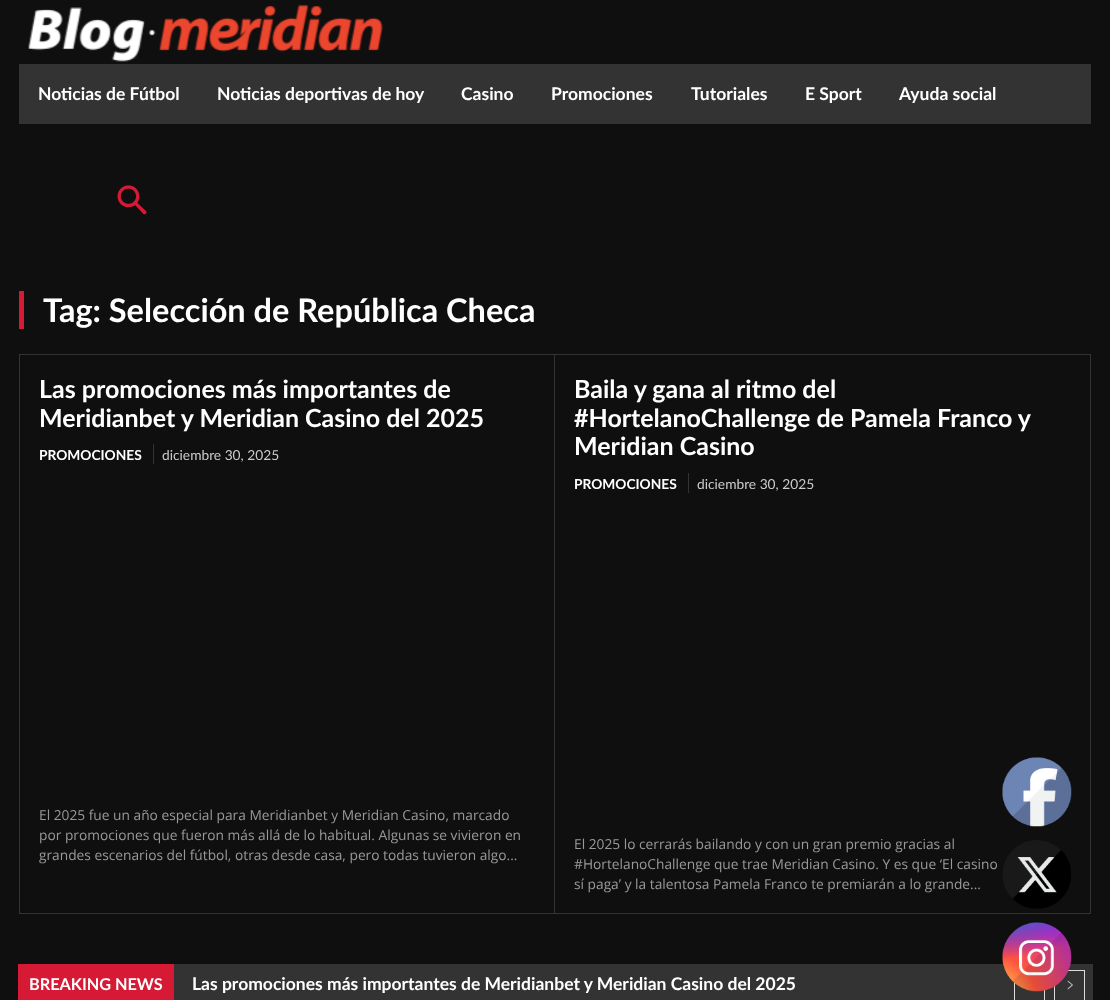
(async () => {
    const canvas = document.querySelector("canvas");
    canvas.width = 1110;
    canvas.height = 1000;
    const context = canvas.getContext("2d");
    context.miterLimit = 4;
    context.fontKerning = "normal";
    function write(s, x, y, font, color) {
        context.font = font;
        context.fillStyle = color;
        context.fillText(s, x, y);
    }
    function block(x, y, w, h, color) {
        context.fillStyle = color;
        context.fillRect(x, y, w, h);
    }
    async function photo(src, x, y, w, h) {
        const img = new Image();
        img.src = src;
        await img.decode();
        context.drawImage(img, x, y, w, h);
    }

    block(0, 0, 1110, 1000, "rgb(15, 15, 15)");
    await photo("media/1.png", 28, 4, 355, 58);
    block(19, 64, 1072, 60, "rgb(51, 51, 51)");
    write("Noticias de Fútbol", 38, 100, "bold 17.5px Lato", "rgb(255, 255, 255)");
    write("Noticias deportivas de hoy", 217, 100, "bold 17.5px Lato", "rgb(255, 255, 255)");
    write("Casino", 461, 100, "bold 17.5px Lato", "rgb(255, 255, 255)");
    write("Promociones", 551, 100, "bold 17.5px Lato", "rgb(255, 255, 255)");
    write("Tutoriales", 691, 100, "bold 17.5px Lato", "rgb(255, 255, 255)");
    write("E Sport", 805, 100, "bold 17.5px Lato", "rgb(255, 255, 255)");
    write("Ayuda social", 899, 100, "bold 17.5px Lato", "rgb(255, 255, 255)");
    await photo("media/2.png", 117, 185, 30, 30);
    block(19, 291, 5, 38, "rgb(214, 25, 53)");
    write("Tag: Selección de República Checa", 43, 322, "bold 32.5px Lato", "rgb(255, 255, 255)");
    context.strokeStyle = "rgb(51, 51, 51)";
    context.strokeRect(19.5, 354.5, 1071, 559);
    block(554, 355, 1, 558, "rgb(51, 51, 51)");
    write("Las promociones más importantes de", 39, 398, "bold 25px Lato", "rgb(255, 255, 255)");
    write("Meridianbet y Meridian Casino del 2025", 39, 427, "bold 25px Lato", "rgb(255, 255, 255)");
    block(153, 444, 1, 20, "rgb(51, 51, 51)");
    write("PROMOCIONES", 39, 460, "bold 13.75px Lato", "rgb(255, 255, 255)");
    write("diciembre 30, 2025", 162, 460, "13.75px Lato", "rgb(204, 204, 204)");
    write("El 2025 fue un año especial para Meridianbet y Meridian Casino, marcado", 39, 820, "13.75px Open Sans", "rgb(153, 153, 153)");
    write("por promociones que fueron más allá de lo habitual. Algunas se vivieron en", 39, 840, "13.75px Open Sans", "rgb(153, 153, 153)");
    write("grandes escenarios del fútbol, otras desde casa, pero todas tuvieron algo...", 39, 860, "13.75px Open Sans", "rgb(153, 153, 153)");
    write("Baila y gana al ritmo del", 574, 398, "bold 25px Lato", "rgb(255, 255, 255)");
    write("#HortelanoChallenge de Pamela Franco y", 574, 427, "bold 25px Lato", "rgb(255, 255, 255)");
    write("Meridian Casino", 574, 455, "bold 25px Lato", "rgb(255, 255, 255)");
    block(688, 473, 1, 20, "rgb(51, 51, 51)");
    write("PROMOCIONES", 574, 489, "bold 13.75px Lato", "rgb(255, 255, 255)");
    write("diciembre 30, 2025", 697, 489, "13.75px Lato", "rgb(204, 204, 204)");
    write("El 2025 lo cerrarás bailando y con un gran premio gracias al", 574, 849, "13.75px Open Sans", "rgb(153, 153, 153)");
    write("#HortelanoChallenge que trae Meridian Casino. Y es que ‘El casino", 574, 869, "13.75px Open Sans", "rgb(153, 153, 153)");
    write("sí paga’ y la talentosa Pamela Franco te premiarán a lo grande...", 574, 889, "13.75px Open Sans", "rgb(153, 153, 153)");
    block(174, 964, 919, 36, "rgb(51, 51, 51)");
    block(18, 964, 156, 36, "rgb(214, 25, 53)");
    write("BREAKING NEWS", 29, 990, "bold 16.25px Lato", "rgb(255, 255, 255)");
    write("Las promociones más importantes de Meridianbet y Meridian Casino del 2025", 192, 990, "bold 17.5px Lato", "rgb(255, 255, 255)");
    context.strokeStyle = "rgb(220, 220, 220)";
    context.strokeRect(1014.5, 970.5, 30, 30);
    context.strokeRect(1054.5, 970.5, 30, 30);
    await photo("media/3.png", 1067, 980, 6, 10);
    await photo("media/4.png", 1002, 757, 70, 70);
    await photo("media/5.png", 1002, 840, 69, 69);
    await photo("media/6.png", 1002, 922, 70, 70);
})();
